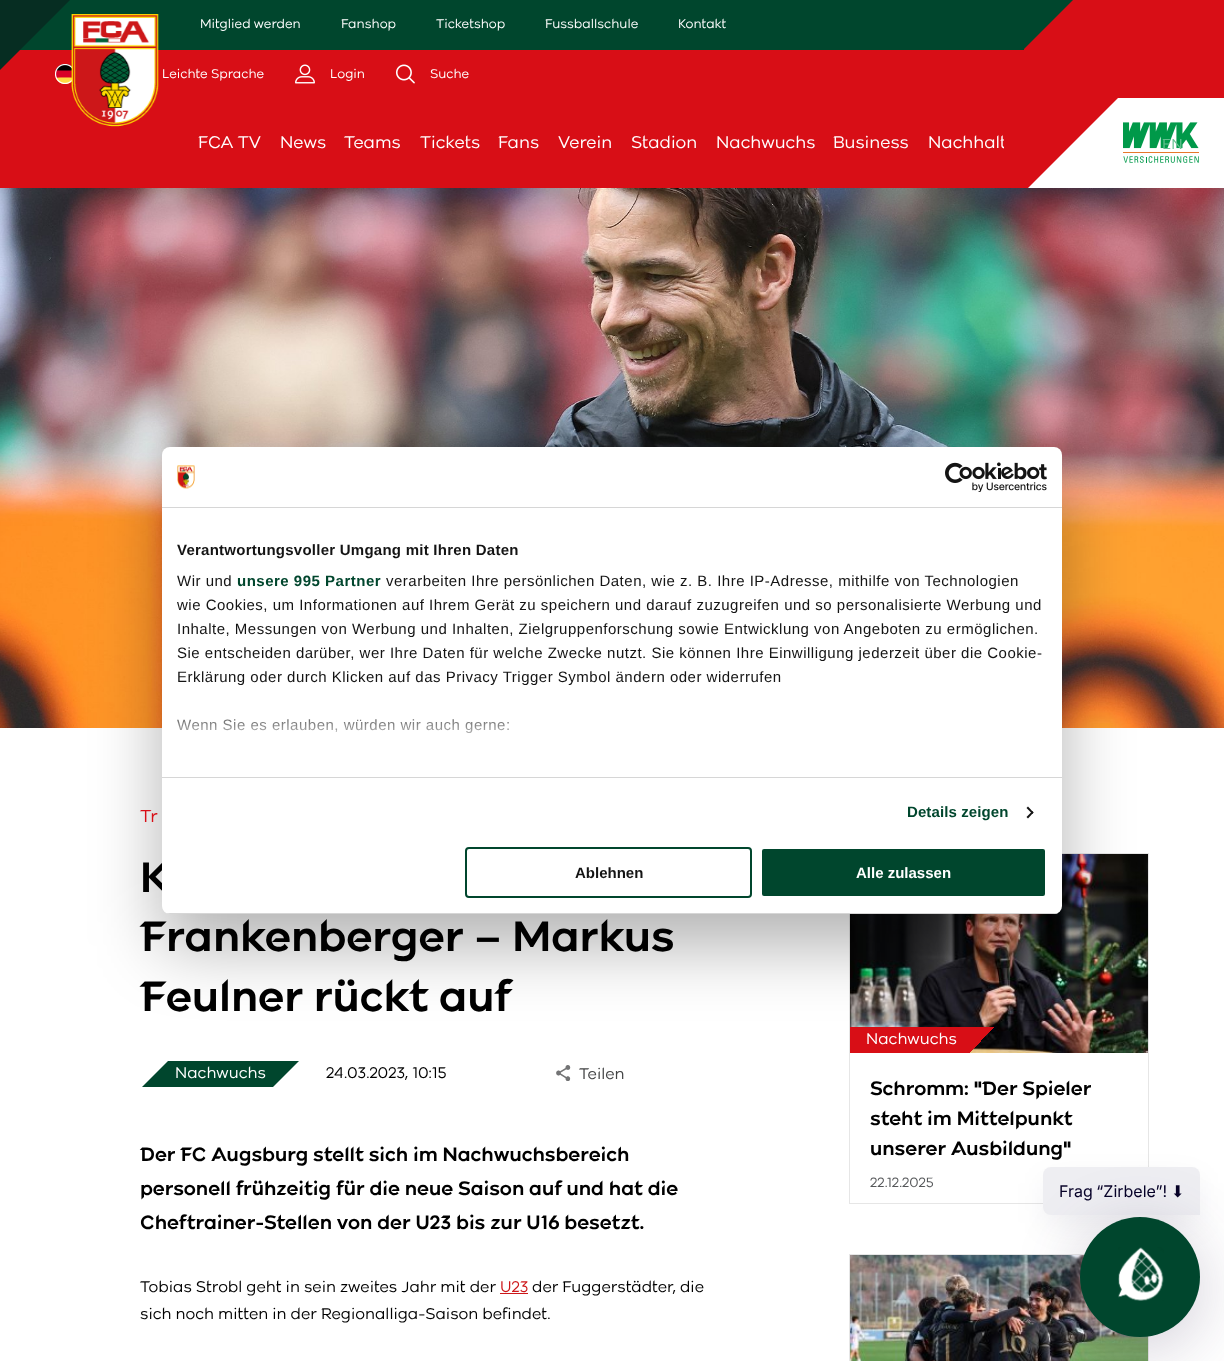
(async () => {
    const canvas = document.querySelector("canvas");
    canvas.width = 1224;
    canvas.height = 1361;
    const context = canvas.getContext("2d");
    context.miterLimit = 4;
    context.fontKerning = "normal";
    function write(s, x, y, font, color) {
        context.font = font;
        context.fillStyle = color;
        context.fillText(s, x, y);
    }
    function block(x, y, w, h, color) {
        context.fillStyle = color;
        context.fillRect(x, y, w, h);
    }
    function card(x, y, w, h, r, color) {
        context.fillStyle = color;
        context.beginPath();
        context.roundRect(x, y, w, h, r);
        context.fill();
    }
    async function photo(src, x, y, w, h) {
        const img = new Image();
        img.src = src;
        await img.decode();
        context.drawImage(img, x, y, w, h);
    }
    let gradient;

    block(0, 0, 1224, 1361, "rgb(255, 255, 255)");
    block(0, 0, 1224, 188, "rgb(216, 14, 22)");
    block(20, 0, 1004, 50, "rgb(0, 70, 45)");
    context.fillStyle = "rgb(6, 45, 34)";
    context.beginPath();
    context.moveTo(-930, 0);
    context.lineTo(70, 0);
    context.lineTo(-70, 140);
    context.lineTo(-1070, 140);
    context.closePath();
    context.fill();
    await photo("media/4.png", 55, 64, 18, 20);
    await photo("media/1.png", 71, 14, 88, 113);
    write("Mitglied werden", 200, 28, "13px 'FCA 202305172'", "rgb(255, 255, 255)");
    write("Fanshop", 341, 28, "13px 'FCA 202305172'", "rgb(255, 255, 255)");
    write("Ticketshop", 436, 28, "13px 'FCA 202305172'", "rgb(255, 255, 255)");
    write("Fussballschule", 545, 28, "13px 'FCA 202305172'", "rgb(255, 255, 255)");
    write("Kontakt", 678, 28, "13px 'FCA 202305172'", "rgb(255, 255, 255)");
    context.fillStyle = "rgb(0, 70, 45)";
    context.beginPath();
    context.moveTo(1023, 0);
    context.lineTo(1073, 0);
    context.lineTo(1023, 50);
    context.closePath();
    context.fill("evenodd");
    write("Leichte Sprache", 162, 78, "13px 'FCA 202305172'", "rgb(255, 255, 255)");
    await photo("media/2.png", 295, 64, 20, 20);
    write("Login", 330, 78, "13px 'FCA 202305172'", "rgb(255, 255, 255)");
    await photo("media/3.png", 395, 64, 20, 20);
    write("Suche", 430, 78, "13px 'FCA 202305172'", "rgb(255, 255, 255)");
    block(1028, 98, 196, 90, "rgb(255, 255, 255)");
    await photo("media/5.png", 1123, 122, 76, 41);
    write("EN", 1162, 149, "15px 'FCA 202305172'", "rgb(102, 194, 146)");
    write("FCA TV", 198, 148, "17.5px 'FCA 202305172'", "rgb(255, 255, 255)");
    write("News", 280, 148, "17.5px 'FCA 202305172'", "rgb(255, 255, 255)");
    write("Teams", 344, 148, "17.5px 'FCA 202305172'", "rgb(255, 255, 255)");
    write("Tickets", 420, 148, "17.5px 'FCA 202305172'", "rgb(255, 255, 255)");
    write("Fans", 498, 148, "17.5px 'FCA 202305172'", "rgb(255, 255, 255)");
    write("Verein", 558, 148, "17.5px 'FCA 202305172'", "rgb(255, 255, 255)");
    write("Stadion", 631, 148, "17.5px 'FCA 202305172'", "rgb(255, 255, 255)");
    write("Nachwuchs", 716, 148, "17.5px 'FCA 202305172'", "rgb(255, 255, 255)");
    write("Business", 833, 148, "17.5px 'FCA 202305172'", "rgb(255, 255, 255)");
    write("Nachhalt", 928, 148, "17.5px 'FCA 202305172'", "rgb(255, 255, 255)");
    context.save();
    context.beginPath();
    context.rect(1004, 98, 116, 90);
    context.clip();
    context.fillStyle = "rgb(216, 14, 22)";
    context.beginPath();
    context.moveTo(1002, 98);
    context.lineTo(1118, 98);
    context.lineTo(1002, 214);
    context.closePath();
    context.fill("evenodd");
    context.restore();
    await photo("media/8.png", 0, 188, 1224, 540);
    context.strokeStyle = "rgb(230, 230, 230)";
    context.strokeRect(849.5, 853.5, 299, 350);
    await photo("media/10.png", 850, 854, 298, 199);
    context.fillStyle = "rgba(0, 0, 0, 0.3)";
    context.filter = "blur(34px)";
    context.beginPath();
    context.roundRect(162, 479, 900, 467, 8);
    context.fill();
    context.filter = "none";
    write("K", 140, 892, "bold 44px 'FCA 202305172'", "rgb(0, 0, 0)");
    card(162, 447, 900, 467, 8, "rgb(255, 255, 255)");
    block(162, 507, 900, 1, "rgb(214, 214, 214)");
    await photo("media/6.png", 177, 465, 18, 24);
    await photo("media/7.png", 945, 462, 102, 30);
    block(162, 777, 900, 1, "rgb(214, 214, 214)");
    context.letterSpacing = "0.25px";
    write("Verantwortungsvoller Umgang mit Ihren Daten", 177, 555, "bold 15px Liberation Sans", "rgb(20, 20, 20)");
    context.letterSpacing = "0.5px";
    write("Wir und", 177, 586, "15px Liberation Sans", "rgb(20, 20, 20)");
    write("unsere 995 Partner", 237, 586, "bold 15px Liberation Sans", "rgb(0, 70, 45)");
    write("verarbeiten Ihre persönlichen Daten, wie z. B. Ihre IP-Adresse, mithilfe von Technologien", 386, 586, "15px Liberation Sans", "rgb(20, 20, 20)");
    write("wie Cookies, um Informationen auf Ihrem Gerät zu speichern und darauf zuzugreifen und so personalisierte Werbung und", 177, 610, "15px Liberation Sans", "rgb(20, 20, 20)");
    write("Inhalte, Messungen von Werbung und Inhalten, Zielgruppenforschung sowie Entwicklung von Angeboten zu ermöglichen.", 177, 634, "15px Liberation Sans", "rgb(20, 20, 20)");
    write("Sie entscheiden darüber, wer Ihre Daten für welche Zwecke nutzt. Sie können Ihre Einwilligung jederzeit über die Cookie-", 177, 658, "15px Liberation Sans", "rgb(20, 20, 20)");
    write("Erklärung oder durch Klicken auf das Privacy Trigger Symbol ändern oder widerrufen", 177, 682, "15px Liberation Sans", "rgb(20, 20, 20)");
    write("Wenn Sie es erlauben, würden wir auch gerne:", 177, 730, "15px Liberation Sans", "rgb(20, 20, 20)");
    gradient = context.createLinearGradient(606, 777, 606, 702);
    gradient.addColorStop(0, "rgb(255, 255, 255)");
    gradient.addColorStop(0.5, "rgba(255, 255, 255, 0.8)");
    gradient.addColorStop(1, "rgba(255, 255, 255, 0)");
    context.fillStyle = gradient;
    context.fillRect(177, 719, 332, 15);
    context.letterSpacing = "0.1px";
    write("Details zeigen", 907, 817, "bold 15px Liberation Sans", "rgb(0, 70, 45)");
    context.fillStyle = "rgb(20, 20, 20)";
    context.beginPath();
    context.moveTo(1028, 806.5);
    context.lineTo(1033.5, 812.5);
    context.lineTo(1032.5, 814);
    context.lineTo(1026.5, 808);
    context.closePath();
    context.fill();
    context.beginPath();
    context.moveTo(1032.5, 811);
    context.lineTo(1033.5, 812.5);
    context.lineTo(1028, 818.5);
    context.lineTo(1026.5, 817);
    context.closePath();
    context.fill();
    context.save();
    context.beginPath();
    context.roundRect(162, 447, 900, 467, 8);
    context.clip();
    block(162, 913, 900, 1, "rgb(214, 214, 214)");
    context.restore();
    context.beginPath();
    context.roundRect(466, 848, 285, 49, 3);
    context.strokeStyle = "rgb(0, 70, 45)";
    context.lineWidth = 2;
    context.stroke();
    context.letterSpacing = "0px";
    write("Ablehnen", 575, 878, "bold 15px Liberation Sans", "rgb(20, 20, 20)");
    context.fillStyle = "rgb(0, 70, 45)";
    context.beginPath();
    context.roundRect(761, 848, 285, 49, 3);
    context.fill();
    context.strokeStyle = "rgb(255, 255, 255)";
    context.stroke();
    write("Alle zulassen", 856, 878, "bold 15px Liberation Sans", "rgb(255, 255, 255)");
    write("Tr", 140, 822, "18px 'FCA 202305172'", "rgb(216, 14, 22)");
    write("Frankenberger – Markus", 140, 951, "bold 44px 'FCA 202305172'", "rgb(0, 0, 0)");
    write("Feulner rückt auf", 140, 1011, "bold 44px 'FCA 202305172'", "rgb(0, 0, 0)");
    context.fillStyle = "rgb(0, 70, 45)";
    context.beginPath();
    context.moveTo(168, 1061);
    context.lineTo(299, 1061);
    context.lineTo(273, 1087);
    context.lineTo(142, 1087);
    context.closePath();
    context.fill();
    write("Nachwuchs", 175, 1078, "16px 'FCA 202305172'", "rgb(255, 255, 255)");
    write("24.03.2023, 10:15", 326, 1078, "16px 'FCA 202305172'", "rgb(0, 0, 0)");
    await photo("media/9.png", 556, 1065, 15, 16);
    write("Teilen", 579, 1079, "16px 'FCA 202305172'", "rgb(66, 67, 68)");
    write("Der FC Augsburg stellt sich im Nachwuchsbereich", 140, 1161, "bold 20px 'FCA 202305172'", "rgb(0, 0, 0)");
    write("personell frühzeitig für die neue Saison auf und hat die", 140, 1195, "bold 20px 'FCA 202305172'", "rgb(0, 0, 0)");
    write("Cheftrainer-Stellen von der U23 bis zur U16 besetzt.", 140, 1229, "bold 20px 'FCA 202305172'", "rgb(0, 0, 0)");
    write("Tobias Strobl geht in sein zweites Jahr mit der", 140, 1292, "16px 'FCA 202305172'", "rgb(0, 0, 0)");
    write("U23", 500, 1292, "16px 'FCA 202305172'", "rgb(205, 23, 25)");
    block(500, 1293, 28, 1, "rgb(205, 23, 25)");
    write("der Fuggerstädter, die", 532, 1292, "16px 'FCA 202305172'", "rgb(0, 0, 0)");
    write("sich noch mitten in der Regionalliga-Saison befindet.", 140, 1319, "16px 'FCA 202305172'", "rgb(0, 0, 0)");
    write("Nachwuchs", 866, 1044, "16px 'FCA 202305172'", "rgb(255, 255, 255)");
    write("Schromm: \"Der Spieler", 870, 1095, "bold 20px 'FCA 202305172'", "rgb(0, 0, 0)");
    write("steht im Mittelpunkt", 870, 1125, "bold 20px 'FCA 202305172'", "rgb(0, 0, 0)");
    write("unserer Ausbildung\"", 870, 1155, "bold 20px 'FCA 202305172'", "rgb(0, 0, 0)");
    write("22.12.2025", 870, 1187, "14px 'FCA 202305172'", "rgb(85, 87, 89)");
    context.strokeStyle = "rgb(230, 230, 230)";
    context.lineWidth = 1;
    context.strokeRect(849.5, 1254.5, 299, 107);
    await photo("media/11.png", 850, 1255, 298, 106);
    context.fillStyle = "rgba(6, 1, 39, 0.08)";
    context.filter = "blur(16px)";
    context.beginPath();
    context.roundRect(1047, 1183, 149, 40, 4);
    context.fill();
    context.filter = "none";
    context.fillStyle = "rgb(238, 238, 242)";
    context.beginPath();
    context.roundRect(1043, 1167, 157, 48, [8, 8, 0, 8]);
    context.fill();
    context.fillStyle = "rgba(62, 47, 89, 0.24)";
    context.filter = "blur(32px)";
    context.beginPath();
    context.roundRect(1080, 1229, 120, 120, 60);
    context.fill();
    context.filter = "none";
    context.fillStyle = "rgb(0, 70, 45)";
    context.beginPath();
    context.arc(1140, 1277, 60, 0, Math.PI * 2);
    context.fill();
    await photo("media/12.png", 1118, 1247, 46, 54);
    context.wordSpacing = "-1px";
    write("Frag “Zirbele”!", 1059, 1197, "16px Inter", "rgb(6, 1, 39)");
    context.wordSpacing = "0px";
    write("⬇", 1171, 1197, "16px DejaVu Sans", "rgb(6, 1, 39)");
})();
